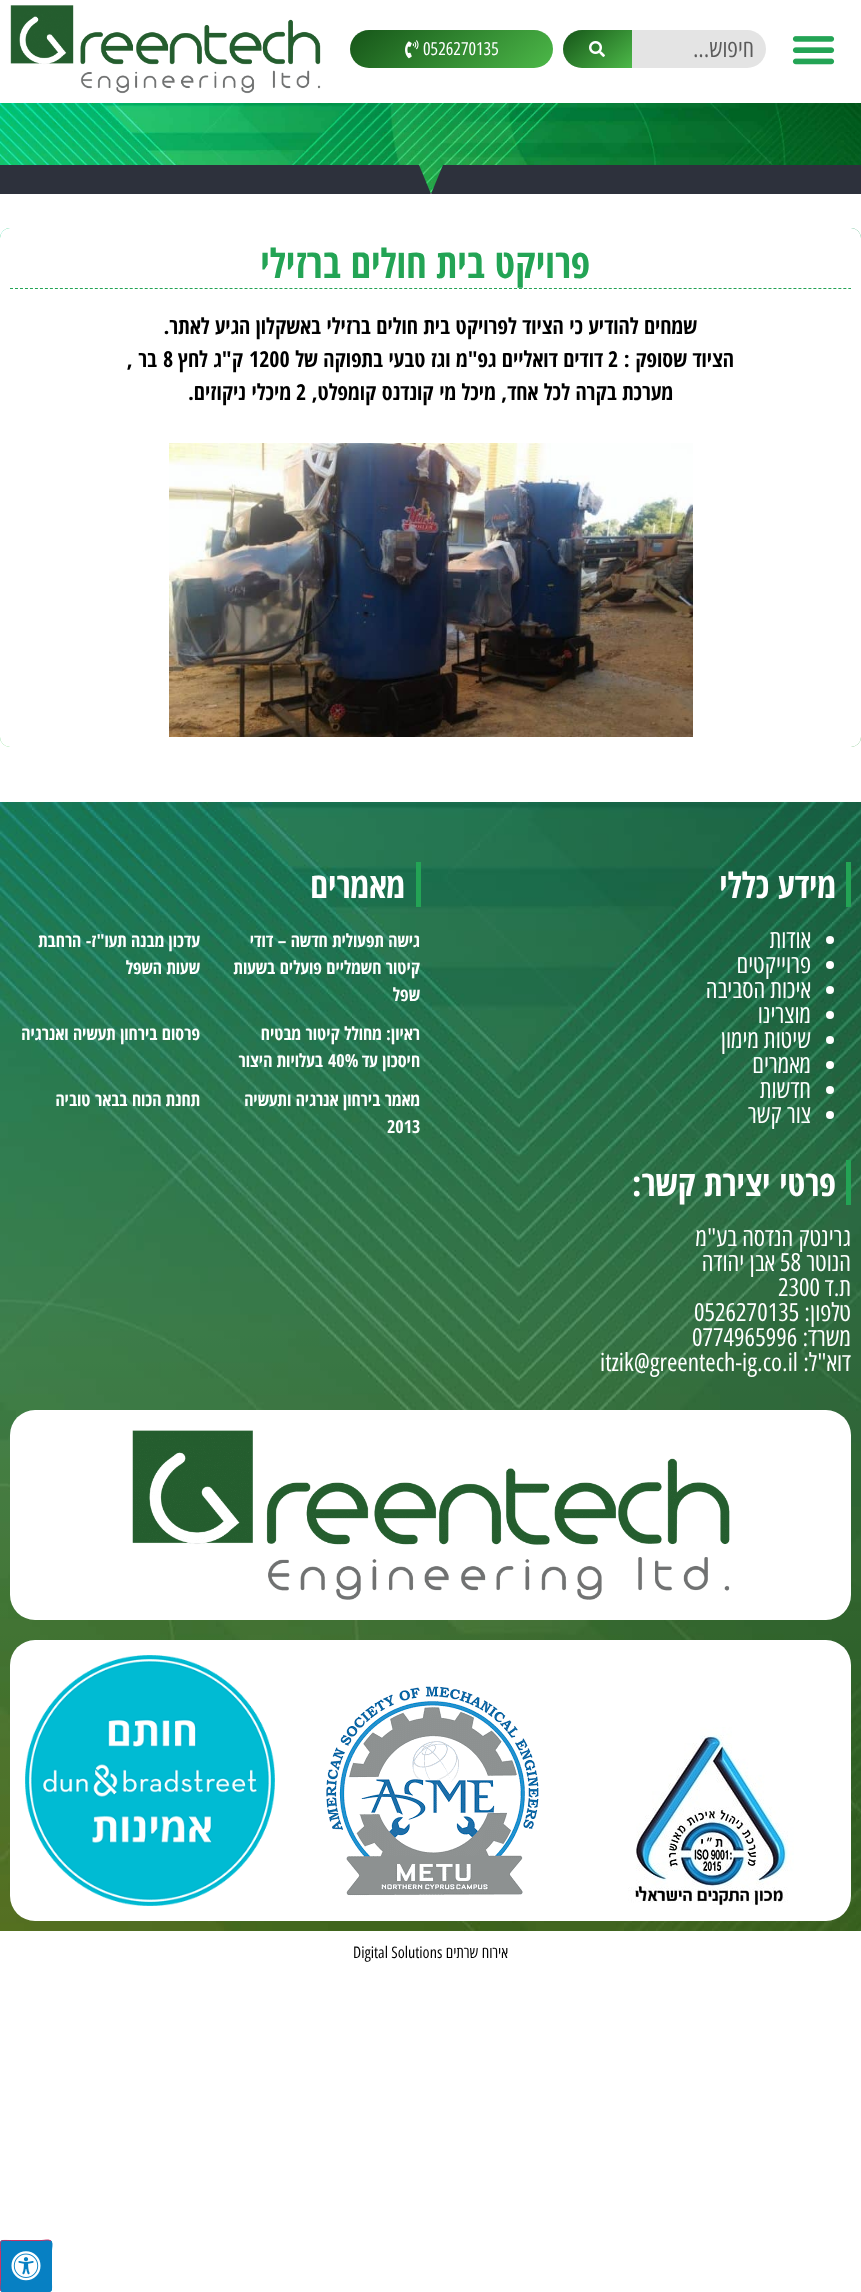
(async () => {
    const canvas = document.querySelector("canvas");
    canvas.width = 861;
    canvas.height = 2292;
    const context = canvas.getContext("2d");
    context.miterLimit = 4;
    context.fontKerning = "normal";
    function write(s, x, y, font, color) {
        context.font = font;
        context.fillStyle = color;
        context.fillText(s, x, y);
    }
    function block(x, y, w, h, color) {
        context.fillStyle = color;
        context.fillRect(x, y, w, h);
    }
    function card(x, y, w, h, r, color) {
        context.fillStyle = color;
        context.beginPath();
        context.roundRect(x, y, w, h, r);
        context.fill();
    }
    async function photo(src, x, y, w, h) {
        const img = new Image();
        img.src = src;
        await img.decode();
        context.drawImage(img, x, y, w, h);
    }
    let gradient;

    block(0, 0, 861, 2292, "rgb(255, 255, 255)");
    await photo("media/1.png", 792, 36, 43, 29);
    card(563, 30, 203, 38, 19, "rgb(228, 228, 228)");
    context.direction = "rtl";
    write("חיפוש...", 754, 57, "24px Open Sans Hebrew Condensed", "rgb(91, 91, 91)");
    gradient = context.createLinearGradient(574, 21, 621, 77);
    gradient.addColorStop(0.07, "rgb(26, 92, 28)");
    gradient.addColorStop(1, "rgb(76, 184, 72)");
    context.fillStyle = gradient;
    context.beginPath();
    context.roundRect(563, 30, 69, 38, [19, 0, 0, 19]);
    context.fill();
    await photo("media/2.png", 589, 41, 16, 16);
    gradient = context.createLinearGradient(400, -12, 503, 110);
    gradient.addColorStop(0.07, "rgb(26, 92, 28)");
    gradient.addColorStop(1, "rgb(76, 184, 72)");
    context.fillStyle = gradient;
    context.beginPath();
    context.roundRect(350, 30, 203, 38, 19);
    context.fill();
    context.direction = "ltr";
    write("0526270135", 423, 55, "18px Open Sans Hebrew Condensed", "rgb(255, 255, 255)");
    await photo("media/3.png", 405, 40, 14, 19);
    await photo("media/4.png", 10, 5, 311, 89);
    await photo("media/5.png", 0, 103, 861, 90);
    context.fillStyle = "rgb(45, 49, 60)";
    context.beginPath();
    context.moveTo(443, 165);
    context.lineTo(431, 194);
    context.lineTo(419, 165);
    context.lineTo(0, 165);
    context.lineTo(0, 194);
    context.lineTo(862, 194);
    context.lineTo(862, 165);
    context.fill();
    await photo("media/6.png", 0, 228, 861, 519);
    card(0, 228, 861, 519, 10, "rgb(255, 255, 255)");
    context.beginPath();
    context.moveTo(10, 288.5);
    context.lineTo(851, 288.5);
    context.strokeStyle = "rgb(35, 164, 85)";
    context.setLineDash([3, 1.99]);
    context.stroke();
    context.direction = "rtl";
    write("פרויקט בית חולים ברזילי", 590, 278, "bold 40px Open Sans Hebrew Condensed", "rgb(35, 164, 85)");
    write("שמחים להודיע כי הציוד לפרויקט בית חולים ברזילי באשקלון הגיע לאתר.", 697, 334, "bold 22px Open Sans Hebrew Condensed", "rgb(0, 0, 0)");
    write("הציוד שסופק :", 734, 367, "bold 22px Open Sans Hebrew Condensed", "rgb(0, 0, 0)");
    context.direction = "ltr";
    write("2", 608, 367, "bold 22px Open Sans Hebrew Condensed", "rgb(0, 0, 0)");
    context.direction = "rtl";
    write("דודים דואליים גפ\"מ וגז טבעי בתפוקה של", 603, 367, "bold 22px Open Sans Hebrew Condensed", "rgb(0, 0, 0)");
    context.direction = "ltr";
    write("1200", 249, 367, "bold 22px Open Sans Hebrew Condensed", "rgb(0, 0, 0)");
    context.direction = "rtl";
    write("ק\"ג לחץ", 243, 367, "bold 22px Open Sans Hebrew Condensed", "rgb(0, 0, 0)");
    context.direction = "ltr";
    write("8", 163, 367, "bold 22px Open Sans Hebrew Condensed", "rgb(0, 0, 0)");
    context.direction = "rtl";
    write("בר ,", 157, 367, "bold 22px Open Sans Hebrew Condensed", "rgb(0, 0, 0)");
    write("מערכת בקרה לכל אחד, מיכל מי קונדנס קומפלט,", 673, 400, "bold 22px Open Sans Hebrew Condensed", "rgb(0, 0, 0)");
    context.direction = "ltr";
    write("2", 296, 400, "bold 22px Open Sans Hebrew Condensed", "rgb(0, 0, 0)");
    context.direction = "rtl";
    write("מיכלי ניקוזים.", 291, 400, "bold 22px Open Sans Hebrew Condensed", "rgb(0, 0, 0)");
    await photo("media/7.png", 169, 443, 524, 294);
    gradient = context.createLinearGradient(430, 802, 431, 1931);
    gradient.addColorStop(0.46, "rgb(45, 49, 60)");
    gradient.addColorStop(1, "rgb(0, 0, 0)");
    context.fillStyle = gradient;
    context.fillRect(0, 802, 861, 1129);
    await photo("media/8.png", 0, 802, 861, 1129);
    block(846, 862, 5, 45, "rgb(35, 164, 85)");
    write("מידע כללי", 836, 898, "bold 35px Open Sans Hebrew Condensed", "rgb(255, 255, 255)");
    context.beginPath();
    context.arc(830, 940, 4, 0, Math.PI * 2);
    context.fill();
    write("אודות", 811, 948, "25px Open Sans Hebrew Condensed", "rgb(255, 255, 255)");
    context.beginPath();
    context.arc(830, 965, 4, 0, Math.PI * 2);
    context.fill();
    write("פרוייקטים", 811, 973, "25px Open Sans Hebrew Condensed", "rgb(255, 255, 255)");
    context.beginPath();
    context.arc(830, 990, 4, 0, Math.PI * 2);
    context.fill();
    write("איכות הסביבה", 811, 998, "25px Open Sans Hebrew Condensed", "rgb(255, 255, 255)");
    context.beginPath();
    context.arc(830, 1015, 4, 0, Math.PI * 2);
    context.fill();
    write("מוצרינו", 811, 1023, "25px Open Sans Hebrew Condensed", "rgb(255, 255, 255)");
    context.beginPath();
    context.arc(830, 1040, 4, 0, Math.PI * 2);
    context.fill();
    write("שיטות מימון", 811, 1048, "25px Open Sans Hebrew Condensed", "rgb(255, 255, 255)");
    context.beginPath();
    context.arc(830, 1065, 4, 0, Math.PI * 2);
    context.fill();
    write("מאמרים", 811, 1073, "25px Open Sans Hebrew Condensed", "rgb(255, 255, 255)");
    context.beginPath();
    context.arc(830, 1090, 4, 0, Math.PI * 2);
    context.fill();
    write("חדשות", 811, 1098, "25px Open Sans Hebrew Condensed", "rgb(255, 255, 255)");
    context.beginPath();
    context.arc(830, 1115, 4, 0, Math.PI * 2);
    context.fill();
    write("צור קשר", 811, 1123, "25px Open Sans Hebrew Condensed", "rgb(255, 255, 255)");
    block(416, 862, 5, 45, "rgb(35, 164, 85)");
    write("מאמרים", 405, 898, "bold 35px Open Sans Hebrew Condensed", "rgb(255, 255, 255)");
    write("גישה תפעולית חדשה – דודי", 420, 947, "bold 18px Open Sans Hebrew Condensed", "rgb(255, 255, 255)");
    write("קיטור חשמליים פועלים בשעות", 420, 974, "bold 18px Open Sans Hebrew Condensed", "rgb(255, 255, 255)");
    write("שפל", 420, 1001, "bold 18px Open Sans Hebrew Condensed", "rgb(255, 255, 255)");
    write("עדכון מבנה תעו\"ז- הרחבת", 200, 947, "bold 18px Open Sans Hebrew Condensed", "rgb(255, 255, 255)");
    write("שעות השפל", 200, 974, "bold 18px Open Sans Hebrew Condensed", "rgb(255, 255, 255)");
    write("ראיון: מחולל קיטור מבטיח", 420, 1040, "bold 18px Open Sans Hebrew Condensed", "rgb(255, 255, 255)");
    write("חיסכון עד", 420, 1067, "bold 18px Open Sans Hebrew Condensed", "rgb(255, 255, 255)");
    context.direction = "ltr";
    write("40%", 328, 1067, "bold 18px Open Sans Hebrew Condensed", "rgb(255, 255, 255)");
    context.direction = "rtl";
    write("בעלויות היצור", 323, 1067, "bold 18px Open Sans Hebrew Condensed", "rgb(255, 255, 255)");
    write("פרסום בירחון תעשיה ואנרגיה", 200, 1040, "bold 18px Open Sans Hebrew Condensed", "rgb(255, 255, 255)");
    write("מאמר בירחון אנרגיה ותעשיה", 420, 1106, "bold 18px Open Sans Hebrew Condensed", "rgb(255, 255, 255)");
    context.direction = "ltr";
    write("2013", 387, 1133, "bold 18px Open Sans Hebrew Condensed", "rgb(255, 255, 255)");
    context.direction = "rtl";
    write("תחנת הכוח בבאר טוביה", 200, 1106, "bold 18px Open Sans Hebrew Condensed", "rgb(255, 255, 255)");
    block(846, 1160, 5, 45, "rgb(35, 164, 85)");
    write("פרטי יצירת קשר:", 836, 1196, "bold 35px Open Sans Hebrew Condensed", "rgb(255, 255, 255)");
    write("גרינטק הנדסה בע\"מ", 851, 1246, "25px Open Sans Hebrew Condensed", "rgb(255, 255, 255)");
    write("הנוטר", 851, 1271, "25px Open Sans Hebrew Condensed", "rgb(255, 255, 255)");
    context.direction = "ltr";
    write("58", 780, 1271, "25px Open Sans Hebrew Condensed", "rgb(255, 255, 255)");
    context.direction = "rtl";
    write("אבן יהודה", 775, 1271, "25px Open Sans Hebrew Condensed", "rgb(255, 255, 255)");
    write("ת.ד", 851, 1296, "25px Open Sans Hebrew Condensed", "rgb(255, 255, 255)");
    context.direction = "ltr";
    write("2300", 778, 1296, "25px Open Sans Hebrew Condensed", "rgb(255, 255, 255)");
    context.direction = "rtl";
    write("טלפון:", 851, 1321, "25px Open Sans Hebrew Condensed", "rgb(255, 255, 255)");
    context.direction = "ltr";
    write("0526270135", 694, 1321, "25px Open Sans Hebrew Condensed", "rgb(255, 255, 255)");
    context.direction = "rtl";
    write("משרד:", 851, 1346, "25px Open Sans Hebrew Condensed", "rgb(255, 255, 255)");
    context.direction = "ltr";
    write("0774965996", 692, 1346, "25px Open Sans Hebrew Condensed", "rgb(255, 255, 255)");
    context.direction = "rtl";
    write("דוא\"ל:", 851, 1371, "25px Open Sans Hebrew Condensed", "rgb(255, 255, 255)");
    context.direction = "ltr";
    write("itzik@greentech-ig.co.il", 600, 1371, "25px Open Sans Hebrew Condensed", "rgb(255, 255, 255)");
    card(10, 1410, 841, 210, 25, "rgb(255, 255, 255)");
    await photo("media/9.png", 132, 1430, 598, 170);
    card(10, 1640, 841, 281, 25, "rgb(255, 255, 255)");
    await photo("media/10.png", 628, 1727, 166, 179);
    await photo("media/11.png", 326, 1686, 214, 210);
    await photo("media/12.png", 25, 1655, 250, 251);
    context.direction = "rtl";
    write("אירוח שרתים", 508, 1958, "16px Open Sans Hebrew Condensed", "rgb(0, 0, 0)");
    context.direction = "ltr";
    write("Digital Solutions", 353, 1958, "16px Open Sans Hebrew Condensed", "rgb(0, 0, 0)");
    card(0, 2240, 52, 52, 3, "rgb(7, 128, 195)");
    context.beginPath();
    context.moveTo(51, 2241);
    context.bezierCurveTo(53, 2243.5, 51.5, 2247.5, 51.5, 2250.5);
    context.lineTo(51.5, 2281.5);
    context.bezierCurveTo(51.5, 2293, 53, 2291.5, 41.5, 2291.5);
    context.lineTo(10.5, 2291.5);
    context.bezierCurveTo(7.5, 2291.5, 3.5, 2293, 1, 2291);
    context.strokeStyle = "rgb(7, 128, 195)";
    context.setLineDash([]);
    context.stroke();
    context.beginPath();
    context.moveTo(1, 2291);
    context.bezierCurveTo(-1, 2288.5, 0.5, 2284.5, 0.5, 2281.5);
    context.lineTo(0.5, 2250.5);
    context.bezierCurveTo(0.5, 2239, -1, 2240.5, 10.5, 2240.5);
    context.lineTo(41.5, 2240.5);
    context.bezierCurveTo(44.5, 2240.5, 48.5, 2239, 51, 2241);
    context.strokeStyle = "rgb(204, 51, 102)";
    context.stroke();
    await photo("media/13.png", 11, 2251, 30, 30);
})();
